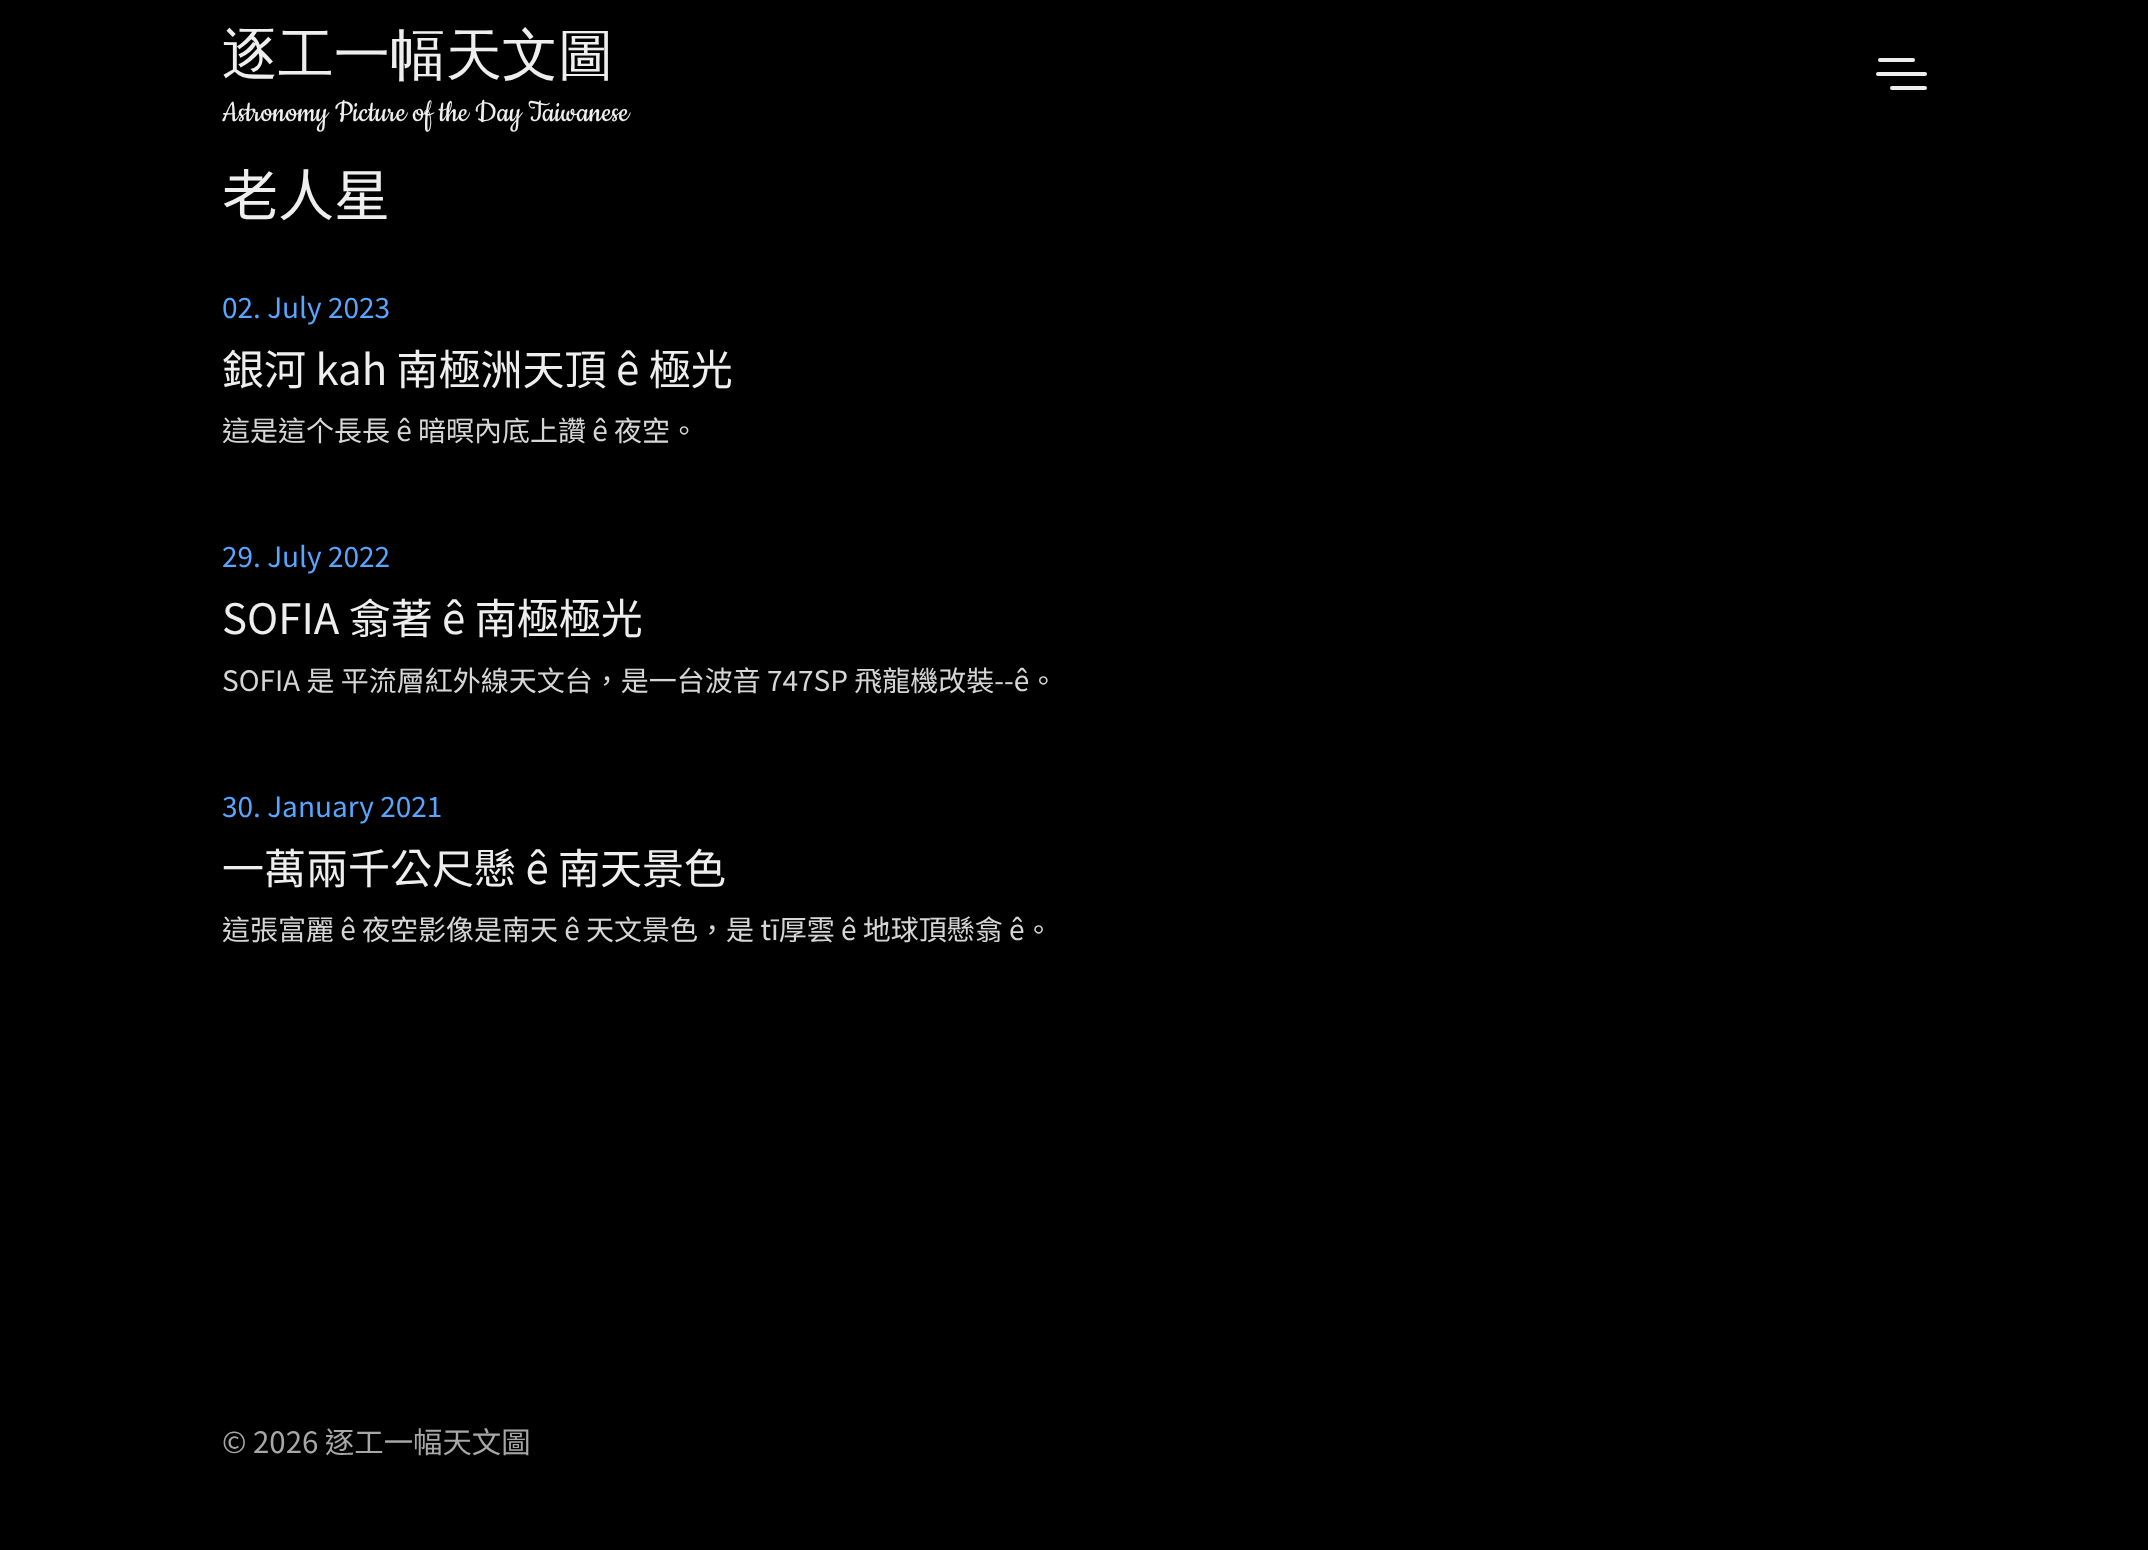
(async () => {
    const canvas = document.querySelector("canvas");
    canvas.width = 2148;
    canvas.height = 1550;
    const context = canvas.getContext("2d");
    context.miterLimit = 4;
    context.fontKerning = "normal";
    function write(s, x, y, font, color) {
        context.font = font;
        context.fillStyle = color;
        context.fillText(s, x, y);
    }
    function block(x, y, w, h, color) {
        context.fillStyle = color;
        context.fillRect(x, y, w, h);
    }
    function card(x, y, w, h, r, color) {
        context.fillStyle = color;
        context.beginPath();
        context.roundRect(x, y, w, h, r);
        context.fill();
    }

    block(0, 0, 2148, 1550, "rgb(0, 0, 0)");
    write("逐工一幅天文圖", 222, 74, "500 56px WenQuanYi Zen Hei", "rgb(238, 238, 238)");
    write("Astronomy Picture of the Day Taiwanese", 222, 121, "33.6px Cookie", "rgb(238, 238, 238)");
    card(1876, 72, 51, 4, 2, "rgb(238, 238, 238)");
    card(1878, 58, 37, 4, 2, "rgb(238, 238, 238)");
    card(1890, 86, 37, 4, 2, "rgb(238, 238, 238)");
    write("老人星", 222, 216, "56px Noto Sans TC", "rgb(238, 238, 238)");
    write("02. July 2023", 222, 318, "28px Noto Sans TC", "rgb(88, 166, 255)");
    write("銀河 kah 南極洲天頂 ê 極光", 222, 385, "42px Noto Sans TC", "rgb(238, 238, 238)");
    write("這是這个長長 ê 暗暝內底上讚 ê 夜空。", 222, 441, "28px Noto Sans TC", "rgb(214, 214, 214)");
    write("29. July 2022", 222, 567, "28px Noto Sans TC", "rgb(88, 166, 255)");
    write("SOFIA 翕著 ê 南極極光", 222, 634, "42px Noto Sans TC", "rgb(238, 238, 238)");
    write("SOFIA 是 平流層紅外線天文台，是一台波音 747SP 飛龍機改裝--ê。", 222, 691, "28px Noto Sans TC", "rgb(214, 214, 214)");
    write("30. January 2021", 222, 817, "28px Noto Sans TC", "rgb(88, 166, 255)");
    write("一萬兩千公尺懸 ê 南天景色", 222, 884, "42px Noto Sans TC", "rgb(238, 238, 238)");
    write("這張富麗 ê 夜空影像是南天 ê 天文景色，是 tī厚雲 ê 地球頂懸翕 ê。", 222, 940, "28px Noto Sans TC", "rgb(214, 214, 214)");
    write("© 2026 逐工一幅天文圖", 222, 1453, "29.4px Noto Sans TC", "rgb(167, 167, 167)");
})();
